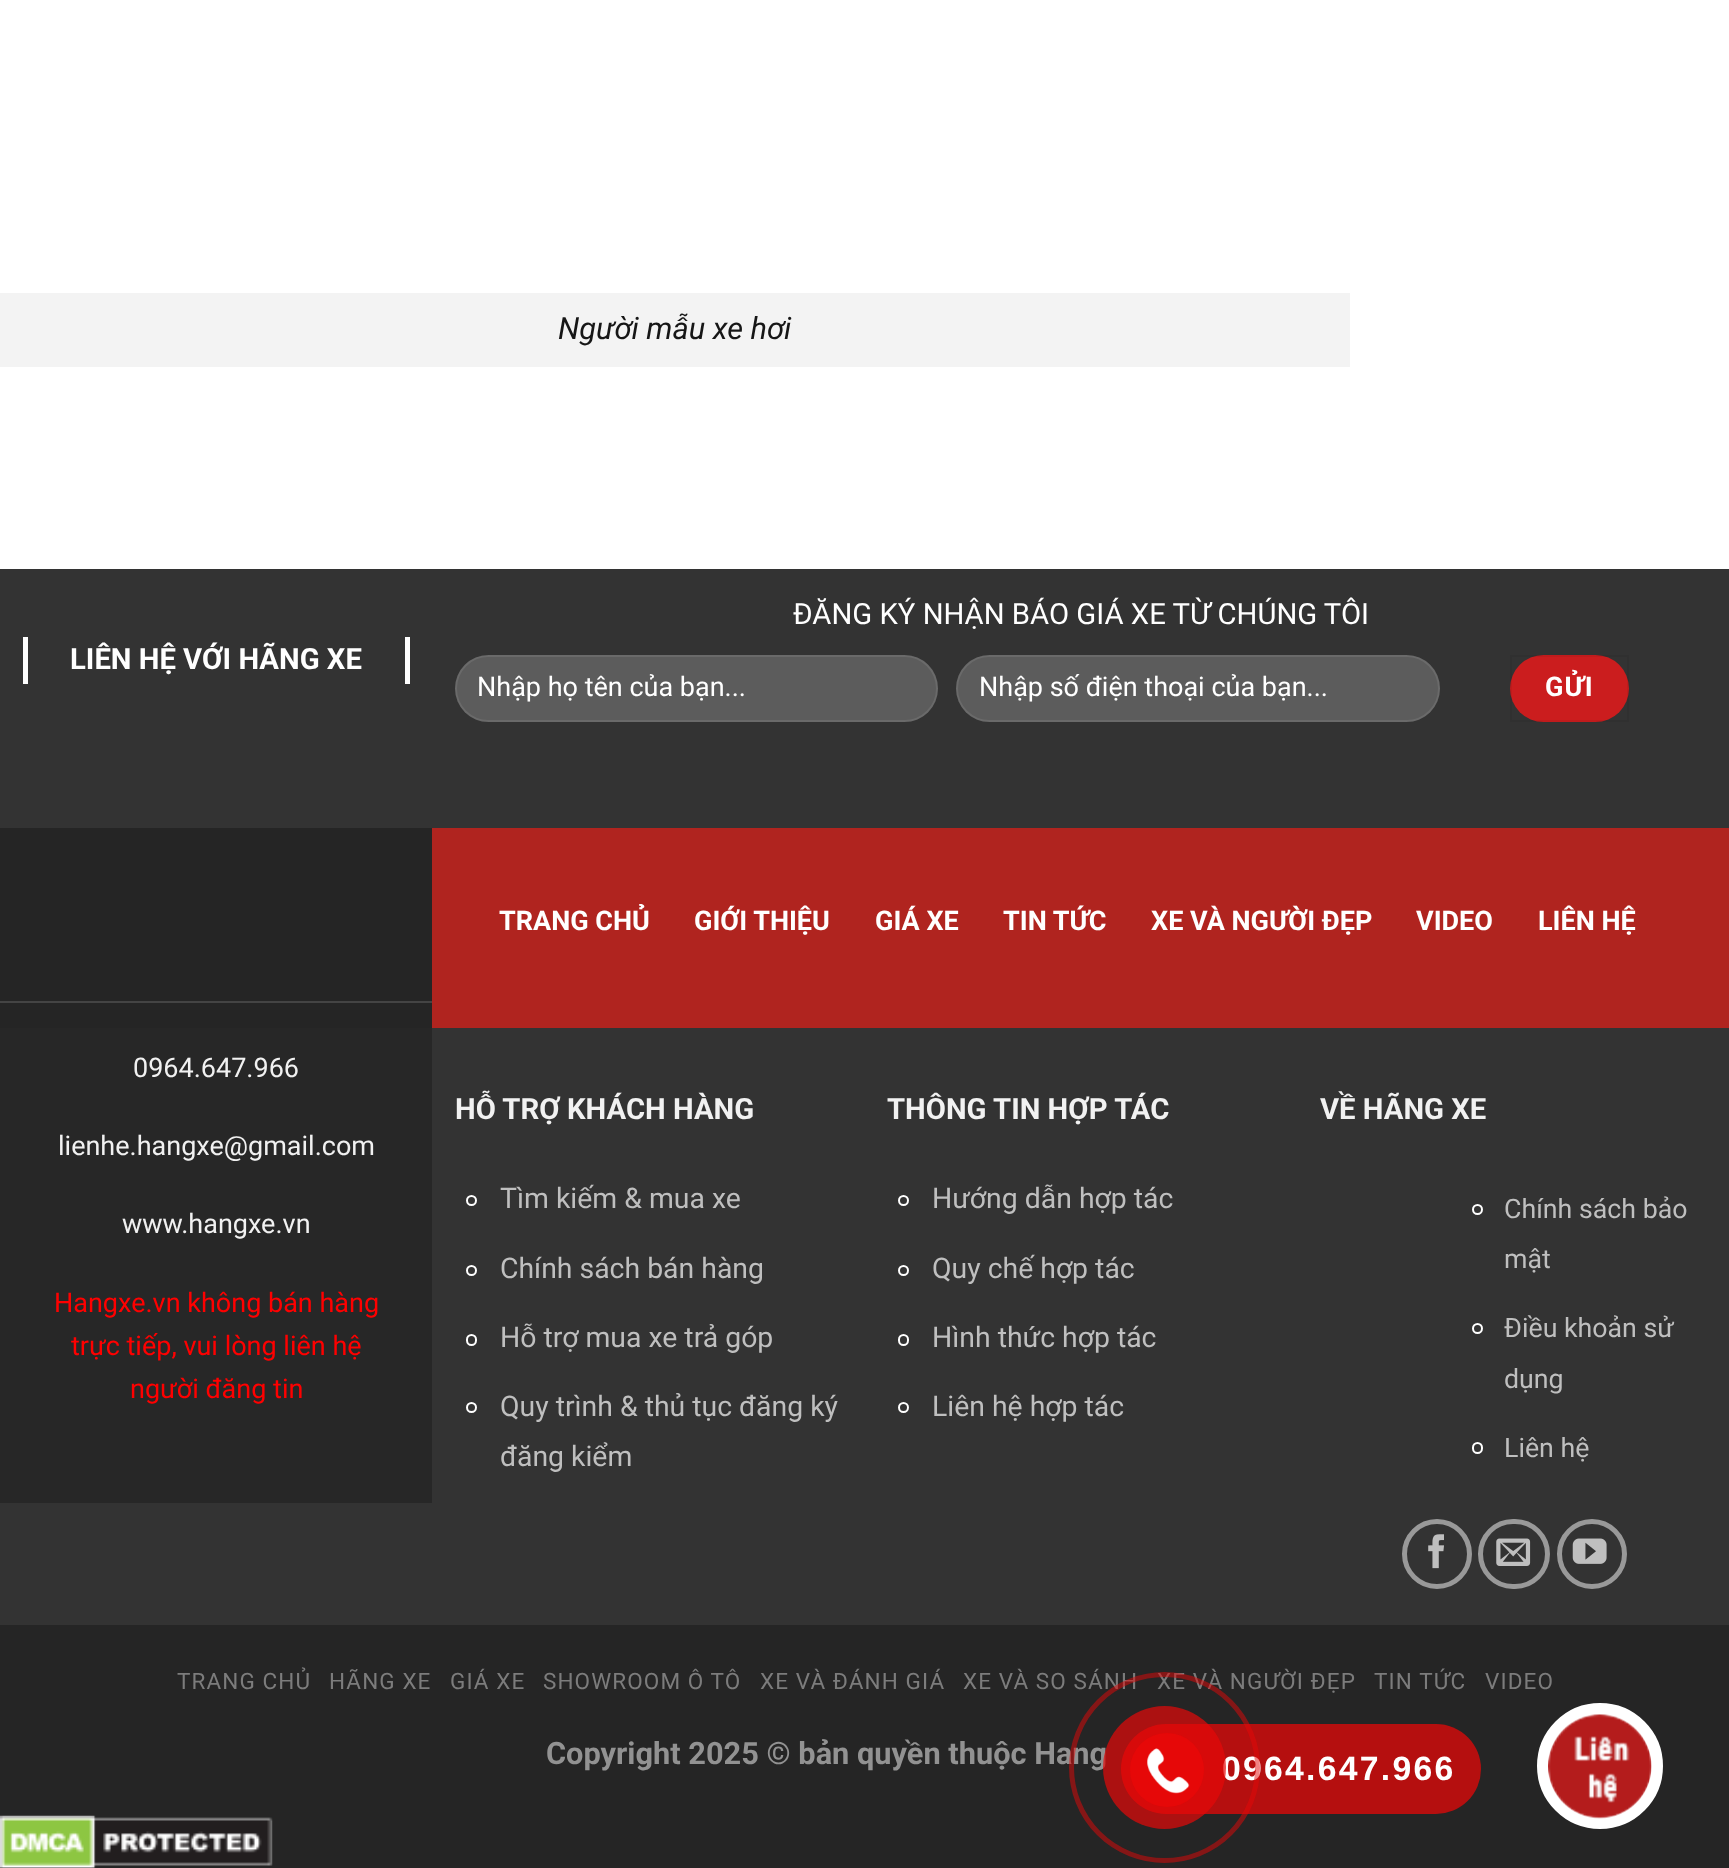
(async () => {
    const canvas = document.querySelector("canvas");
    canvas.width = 1729;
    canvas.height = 1868;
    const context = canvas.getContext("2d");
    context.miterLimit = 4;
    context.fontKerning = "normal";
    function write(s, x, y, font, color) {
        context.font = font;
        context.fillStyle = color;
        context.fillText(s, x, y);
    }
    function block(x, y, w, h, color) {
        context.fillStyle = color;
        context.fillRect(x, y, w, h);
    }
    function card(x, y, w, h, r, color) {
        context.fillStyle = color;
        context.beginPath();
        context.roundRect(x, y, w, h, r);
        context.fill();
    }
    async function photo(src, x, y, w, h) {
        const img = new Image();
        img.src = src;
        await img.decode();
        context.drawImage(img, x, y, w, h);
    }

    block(0, 0, 1729, 1868, "rgb(37, 37, 37)");
    block(0, 0, 1729, 569, "rgb(255, 255, 255)");
    block(0, 293, 1350, 74, "rgb(243, 243, 243)");
    write("Người mẫu xe hơi", 558, 339, "italic 30.75px Roboto", "rgb(22, 22, 22)");
    block(0, 569, 1729, 259, "rgb(51, 51, 51)");
    block(405, 637, 5, 47, "rgb(255, 255, 255)");
    block(23, 637, 5, 47, "rgb(255, 255, 255)");
    write("LIÊN HỆ VỚI HÃNG XE", 70, 669, "bold 29.25px Roboto", "rgb(255, 255, 255)");
    write("ĐĂNG KÝ NHẬN BÁO GIÁ XE TỪ CHÚNG TÔI", 793, 624, "29.25px Roboto", "rgb(255, 255, 255)");
    card(455, 655, 483, 67, 33.5, "rgb(92, 92, 92)");
    context.beginPath();
    context.roundRect(456, 656, 481, 65, 32.5);
    context.strokeStyle = "rgba(255, 255, 255, 0.09)";
    context.lineWidth = 2;
    context.stroke();
    write("Nhập họ tên của bạn...", 477, 696, "27px Roboto", "rgb(255, 255, 255)");
    card(956, 655, 484, 67, 33.5, "rgb(92, 92, 92)");
    context.beginPath();
    context.roundRect(957, 656, 482, 65, 32.5);
    context.stroke();
    write("Nhập số điện thoại của bạn...", 979, 696, "27px Roboto", "rgb(255, 255, 255)");
    card(1510, 655, 119, 67, 33.5, "rgb(203, 29, 30)");
    context.strokeStyle = "rgba(0, 0, 0, 0.05)";
    context.strokeRect(1511, 656, 117, 65);
    context.letterSpacing = "1px";
    write("GỬI", 1545, 696, "bold 27px Roboto", "rgb(255, 255, 255)");
    block(432, 828, 1297, 200, "rgb(176, 36, 31)");
    context.letterSpacing = "0px";
    write("TRANG CHỦ", 499, 930, "bold 27px Roboto", "rgb(255, 255, 255)");
    write("GIỚI THIỆU", 694, 930, "bold 27px Roboto", "rgb(255, 255, 255)");
    write("GIÁ XE", 875, 930, "bold 27px Roboto", "rgb(255, 255, 255)");
    write("TIN TỨC", 1003, 930, "bold 27px Roboto", "rgb(255, 255, 255)");
    write("XE VÀ NGƯỜI ĐẸP", 1151, 930, "bold 27px Roboto", "rgb(255, 255, 255)");
    write("VIDEO", 1416, 930, "bold 27px Roboto", "rgb(255, 255, 255)");
    write("LIÊN HỆ", 1538, 930, "bold 27px Roboto", "rgb(255, 255, 255)");
    block(0, 1028, 1729, 597, "rgb(51, 51, 51)");
    block(0, 1028, 432, 475, "rgb(39, 39, 39)");
    block(0, 1001, 432, 2, "rgb(68, 68, 68)");
    write("0964.647.966", 133, 1077, "27px Roboto", "rgb(241, 241, 241)");
    write("lienhe.hangxe@gmail.com", 58, 1155, "27px Roboto", "rgb(241, 241, 241)");
    write("www.hangxe.vn", 122, 1233, "27px Roboto", "rgb(241, 241, 241)");
    write("Hangxe.vn không bán hàng", 54, 1312, "27px Roboto", "rgb(255, 0, 0)");
    write("trực tiếp, vui lòng liên hệ", 71, 1355, "27px Roboto", "rgb(255, 0, 0)");
    write("người đăng tin", 130, 1398, "27px Roboto", "rgb(255, 0, 0)");
    write("HỖ TRỢ KHÁCH HÀNG", 455, 1119, "bold 29.25px Roboto", "rgb(241, 241, 241)");
    context.beginPath();
    context.arc(471.5, 1200.5, 4.5, 0, Math.PI * 2);
    context.strokeStyle = "rgb(255, 255, 255)";
    context.stroke();
    write("Tìm kiếm & mua xe", 500, 1208, "28.4px Roboto", "rgb(191, 191, 191)");
    context.beginPath();
    context.arc(471.5, 1270.5, 4.5, 0, Math.PI * 2);
    context.stroke();
    write("Chính sách bán hàng", 500, 1278, "28.4px Roboto", "rgb(191, 191, 191)");
    context.beginPath();
    context.roundRect(467, 1335, 9, 10, 4.5);
    context.stroke();
    write("Hỗ trợ mua xe trả góp", 500, 1347, "28.4px Roboto", "rgb(191, 191, 191)");
    context.beginPath();
    context.arc(471.5, 1407.5, 4.5, 0, Math.PI * 2);
    context.stroke();
    write("Quy trình & thủ tục đăng ký", 500, 1416, "28.4px Roboto", "rgb(191, 191, 191)");
    write("đăng kiểm", 500, 1466, "28.4px Roboto", "rgb(191, 191, 191)");
    write("THÔNG TIN HỢP TÁC", 887, 1119, "bold 29.25px Roboto", "rgb(241, 241, 241)");
    context.beginPath();
    context.arc(903.5, 1200.5, 4.5, 0, Math.PI * 2);
    context.stroke();
    write("Hướng dẫn hợp tác", 932, 1208, "28.4px Roboto", "rgb(191, 191, 191)");
    context.beginPath();
    context.arc(903.5, 1270.5, 4.5, 0, Math.PI * 2);
    context.stroke();
    write("Quy chế hợp tác", 932, 1278, "28.4px Roboto", "rgb(191, 191, 191)");
    context.beginPath();
    context.roundRect(899, 1335, 9, 10, 4.5);
    context.stroke();
    write("Hình thức hợp tác", 932, 1347, "28.4px Roboto", "rgb(191, 191, 191)");
    context.beginPath();
    context.arc(903.5, 1407.5, 4.5, 0, Math.PI * 2);
    context.stroke();
    write("Liên hệ hợp tác", 932, 1416, "28.4px Roboto", "rgb(191, 191, 191)");
    write("VỀ HÃNG XE", 1320, 1119, "bold 29.25px Roboto", "rgb(241, 241, 241)");
    context.beginPath();
    context.arc(1477.5, 1209.5, 4.5, 0, Math.PI * 2);
    context.stroke();
    write("Chính sách bảo", 1504, 1218, "26.75px Roboto", "rgb(191, 191, 191)");
    write("mật", 1504, 1268, "26.75px Roboto", "rgb(191, 191, 191)");
    context.beginPath();
    context.arc(1477.5, 1328.5, 4.5, 0, Math.PI * 2);
    context.stroke();
    write("Điều khoản sử", 1504, 1337, "26.75px Roboto", "rgb(191, 191, 191)");
    write("dụng", 1504, 1388, "26.75px Roboto", "rgb(191, 191, 191)");
    context.beginPath();
    context.roundRect(1473, 1443, 9, 10, 4.5);
    context.stroke();
    write("Liên hệ", 1504, 1457, "26.75px Roboto", "rgb(191, 191, 191)");
    context.beginPath();
    context.arc(1437, 1554, 32.5, 0, Math.PI * 2);
    context.strokeStyle = "rgb(153, 153, 153)";
    context.lineWidth = 5;
    context.stroke();
    await photo("media/1.png", 1428, 1534, 16, 35);
    context.beginPath();
    context.roundRect(1480.5, 1521.5, 67, 65, 32.5);
    context.stroke();
    await photo("media/2.png", 1496, 1538, 35, 28);
    context.beginPath();
    context.arc(1592, 1554, 32.5, 0, Math.PI * 2);
    context.stroke();
    await photo("media/3.png", 1572, 1538, 35, 26);
    context.letterSpacing = "1.1px";
    write("TRANG CHỦ", 177, 1689, "22.5px Roboto", "rgb(124, 124, 124)");
    write("HÃNG XE", 329, 1689, "22.5px Roboto", "rgb(124, 124, 124)");
    write("GIÁ XE", 450, 1689, "22.5px Roboto", "rgb(124, 124, 124)");
    write("SHOWROOM Ô TÔ", 543, 1689, "22.5px Roboto", "rgb(124, 124, 124)");
    write("XE VÀ ĐÁNH GIÁ", 760, 1689, "22.5px Roboto", "rgb(124, 124, 124)");
    write("XE VÀ SO SÁNH", 963, 1689, "22.5px Roboto", "rgb(124, 124, 124)");
    write("XE VÀ NGƯỜI ĐẸP", 1157, 1689, "22.5px Roboto", "rgb(124, 124, 124)");
    write("TIN TỨC", 1374, 1689, "22.5px Roboto", "rgb(124, 124, 124)");
    write("VIDEO", 1485, 1689, "22.5px Roboto", "rgb(124, 124, 124)");
    context.letterSpacing = "0px";
    write("Copyright 2025 © bản quyền thuộc Hang", 546, 1764, "bold 30.75px Roboto", "rgb(146, 146, 146)");
    card(1121, 1724, 360, 90, 45, "rgba(230, 8, 8, 0.75)");
    context.letterSpacing = "2.25px";
    write("0964.647.966", 1222, 1780, "bold 33.75px Liberation Sans", "rgb(255, 255, 255)");
    context.beginPath();
    context.arc(1164.5, 1767.5, 93, 0, Math.PI * 2);
    context.strokeStyle = "rgba(230, 8, 8, 0.5)";
    context.stroke();
    context.fillStyle = "rgba(230, 8, 8, 0.7)";
    context.beginPath();
    context.arc(1164.5, 1767.5, 61.5, 0, Math.PI * 2);
    context.fill();
    context.fillStyle = "rgb(230, 8, 8)";
    context.beginPath();
    context.arc(1167, 1770, 37, 0, Math.PI * 2);
    context.fill();
    await photo("media/4.png", 1147, 1748, 43, 46);
    context.fillStyle = "rgb(255, 255, 255)";
    context.beginPath();
    context.arc(1600, 1766, 57.5, 0, Math.PI * 2);
    context.fill();
    context.strokeStyle = "rgb(255, 255, 255)";
    context.lineWidth = 11;
    context.stroke();
    await photo("media/5.png", 1548, 1714, 104, 105);
    await photo("media/6.png", 0, 1815, 273, 53);
})();
